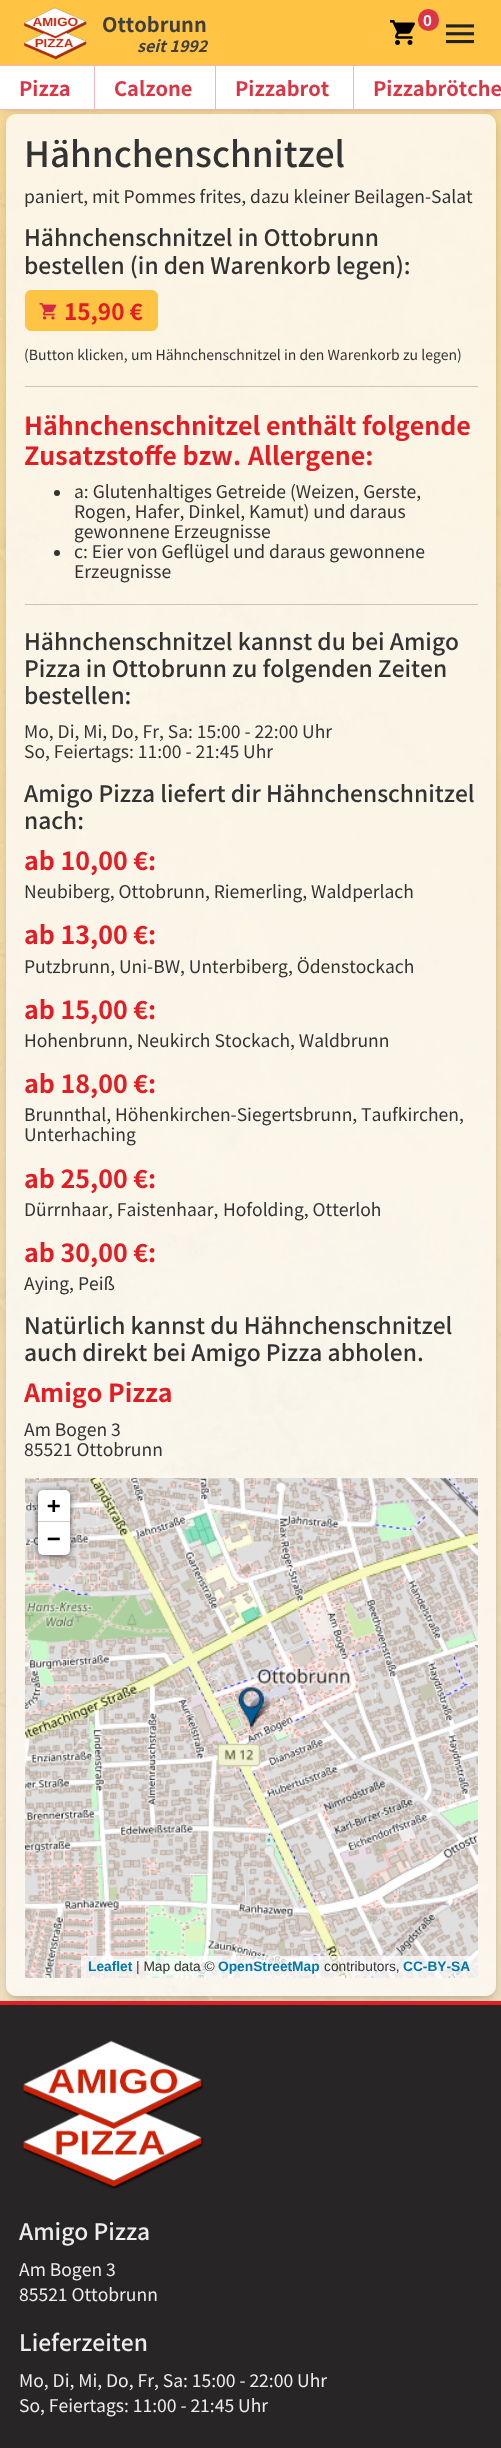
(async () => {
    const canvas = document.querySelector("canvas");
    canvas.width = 501;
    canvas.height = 2448;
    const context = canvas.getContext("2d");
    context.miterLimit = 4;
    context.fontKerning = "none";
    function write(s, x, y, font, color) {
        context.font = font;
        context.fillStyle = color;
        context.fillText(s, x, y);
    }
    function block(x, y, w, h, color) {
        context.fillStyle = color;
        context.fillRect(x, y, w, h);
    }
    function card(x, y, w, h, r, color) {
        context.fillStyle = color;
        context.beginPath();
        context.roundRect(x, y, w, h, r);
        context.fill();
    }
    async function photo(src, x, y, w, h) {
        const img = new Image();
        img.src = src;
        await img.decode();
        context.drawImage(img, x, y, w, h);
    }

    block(0, 0, 501, 2448, "rgb(255, 255, 255)");
    await photo("media/1.png", 0, 110, 501, 1891);
    block(0, 2005, 501, 443, "rgb(39, 37, 37)");
    block(0, 2001, 501, 4, "rgb(227, 29, 36)");
    context.save();
    context.beginPath();
    context.rect(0, 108, 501, 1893);
    context.clip();
    context.beginPath();
    context.moveTo(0, 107);
    context.lineTo(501, 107);
    context.lineTo(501, 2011);
    context.lineTo(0, 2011);
    context.closePath();
    context.moveTo(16, 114);
    context.lineTo(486, 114);
    context.bezierCurveTo(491.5, 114, 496, 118.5, 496, 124);
    context.lineTo(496, 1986);
    context.bezierCurveTo(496, 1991.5, 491.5, 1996, 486, 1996);
    context.lineTo(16, 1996);
    context.bezierCurveTo(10.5, 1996, 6, 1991.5, 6, 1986);
    context.lineTo(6, 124);
    context.bezierCurveTo(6, 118.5, 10.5, 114, 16, 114);
    context.closePath();
    context.clip("evenodd");
    context.fillStyle = "rgba(0, 0, 0, 0.25)";
    context.filter = "blur(4px)";
    context.beginPath();
    context.roundRect(9, 120, 485, 1878, 8);
    context.fill();
    context.filter = "none";
    context.restore();
    card(6, 114, 490, 1882, 10, "rgba(255, 255, 255, 0.75)");
    context.fillStyle = "rgb(0, 0, 0)";
    context.filter = "blur(5px)";
    context.beginPath();
    context.rect(6, 6, 489, 98);
    context.fill();
    context.filter = "none";
    block(0, 0, 501, 65, "rgb(255, 196, 68)");
    await photo("media/2.png", 23, 7, 64, 53);
    write("Ottobrunn", 102, 32, "bold 20px Noto Sans JP", "rgb(65, 62, 62)");
    write("seit 1992", 137, 52, "italic bold 16px Noto Sans JP", "rgb(65, 62, 62)");
    await photo("media/3.png", 390, 20, 25, 25);
    card(418, 9, 21, 22, 10.5, "rgb(220, 53, 69)");
    write("0", 423, 26, "bold 15px Noto Sans JP", "rgb(255, 255, 255)");
    await photo("media/4.png", 445, 24, 30, 20);
    block(0, 66, 501, 43, "rgb(255, 255, 255)");
    block(0, 65, 501, 1, "rgb(240, 181, 191)");
    block(0, 109, 501, 1, "rgb(240, 181, 191)");
    write("Pizza", 19, 96, "bold 20px Noto Sans JP", "rgb(220, 53, 69)");
    block(94, 66, 1, 43, "rgb(240, 181, 191)");
    write("Calzone", 114, 96, "bold 20px Noto Sans JP", "rgb(220, 53, 69)");
    block(215, 66, 1, 43, "rgb(240, 181, 191)");
    write("Pizzabrot", 235, 96, "bold 20px Noto Sans JP", "rgb(220, 53, 69)");
    block(353, 66, 1, 43, "rgb(240, 181, 191)");
    write("Pizzabrötche", 373, 96, "bold 20px Noto Sans JP", "rgb(220, 53, 69)");
    write("Hähnchenschnitzel", 24, 167, "500 35px Noto Sans JP", "rgb(51, 51, 51)");
    write("paniert, mit Pommes frites, dazu kleiner Beilagen-Salat", 24, 203, "17.5px Noto Sans JP", "rgb(51, 51, 51)");
    write("Hähnchenschnitzel in Ottobrunn", 24, 246, "500 22.75px Noto Sans JP", "rgb(51, 51, 51)");
    write("bestellen (in den Warenkorb legen):", 24, 274, "500 22.75px Noto Sans JP", "rgb(51, 51, 51)");
    context.fillStyle = "rgb(255, 196, 68)";
    context.beginPath();
    context.roundRect(25.5, 290.5, 132, 40, 5.5);
    context.fill();
    context.strokeStyle = "rgb(255, 196, 68)";
    context.stroke();
    await photo("media/5.png", 39, 302, 18, 18);
    write("15,90 €", 64, 320, "bold 22.5px Noto Sans JP", "rgb(227, 29, 36)");
    write("(Button klicken, um Hähnchenschnitzel in den Warenkorb zu legen)", 24, 360, "14px Noto Sans JP", "rgb(51, 51, 51)");
    block(25, 386, 453, 1, "rgba(0, 0, 0, 0.2)");
    write("Hähnchenschnitzel enthält folgende", 24, 435, "bold 25px Noto Sans JP", "rgb(227, 29, 36)");
    write("Zusatzstoffe bzw.", 24, 465, "bold 25px Noto Sans JP", "rgb(227, 29, 36)");
    write("Allergene:", 248, 465, "bold 25px Noto Sans JP", "rgb(227, 29, 36)");
    context.fillStyle = "rgb(51, 51, 51)";
    context.beginPath();
    context.arc(57, 493, 3, 0, Math.PI * 2);
    context.fill();
    write("a: Glutenhaltiges Getreide (Weizen, Gerste,", 74, 498, "17.5px Noto Sans JP", "rgb(51, 51, 51)");
    write("Rogen, Hafer, Dinkel, Kamut) und daraus", 74, 518, "17.5px Noto Sans JP", "rgb(51, 51, 51)");
    write("gewonnene Erzeugnisse", 74, 538, "17.5px Noto Sans JP", "rgb(51, 51, 51)");
    context.beginPath();
    context.arc(57, 553, 3, 0, Math.PI * 2);
    context.fill();
    write("c: Eier von Geflügel und daraus gewonnene", 74, 558, "17.5px Noto Sans JP", "rgb(51, 51, 51)");
    write("Erzeugnisse", 74, 578, "17.5px Noto Sans JP", "rgb(51, 51, 51)");
    block(25, 604, 453, 1, "rgba(0, 0, 0, 0.2)");
    write("Hähnchenschnitzel kannst du bei Amigo", 24, 650, "500 22.75px Noto Sans JP", "rgb(51, 51, 51)");
    write("Pizza in Ottobrunn zu folgenden Zeiten", 24, 677, "500 22.75px Noto Sans JP", "rgb(51, 51, 51)");
    write("bestellen:", 24, 704, "500 22.75px Noto Sans JP", "rgb(51, 51, 51)");
    write("Mo, Di, Mi, Do, Fr, Sa: 15:00 - 22:00 Uhr", 24, 738, "17.5px Noto Sans JP", "rgb(51, 51, 51)");
    write("So, Feiertags: 11:00 - 21:45 Uhr", 24, 758, "17.5px Noto Sans JP", "rgb(51, 51, 51)");
    write("Amigo Pizza liefert dir Hähnchenschnitzel", 24, 802, "500 22.75px Noto Sans JP", "rgb(51, 51, 51)");
    write("nach:", 24, 829, "500 22.75px Noto Sans JP", "rgb(51, 51, 51)");
    write("ab 10,00 €:", 24, 870, "bold 25px Noto Sans JP", "rgb(227, 29, 36)");
    write("Neubiberg, Ottobrunn, Riemerling, Waldperlach", 24, 898, "17.5px Noto Sans JP", "rgb(51, 51, 51)");
    write("ab 13,00 €:", 24, 944, "bold 25px Noto Sans JP", "rgb(227, 29, 36)");
    write("Putzbrunn, Uni-BW, Unterbiberg, Ödenstockach", 24, 973, "17.5px Noto Sans JP", "rgb(51, 51, 51)");
    write("ab 15,00 €:", 24, 1019, "bold 25px Noto Sans JP", "rgb(227, 29, 36)");
    write("Hohenbrunn, Neukirch Stockach, Waldbrunn", 24, 1047, "17.5px Noto Sans JP", "rgb(51, 51, 51)");
    write("ab 18,00 €:", 24, 1093, "bold 25px Noto Sans JP", "rgb(227, 29, 36)");
    write("Brunnthal, Höhenkirchen-Siegertsbrunn, Taufkirchen,", 24, 1121, "17.5px Noto Sans JP", "rgb(51, 51, 51)");
    write("Unterhaching", 24, 1141, "17.5px Noto Sans JP", "rgb(51, 51, 51)");
    write("ab 25,00 €:", 24, 1188, "bold 25px Noto Sans JP", "rgb(227, 29, 36)");
    write("Dürrnhaar, Faistenhaar,", 24, 1216, "17.5px Noto Sans JP", "rgb(51, 51, 51)");
    write("Hofolding, Otterloh", 223, 1216, "17.5px Noto Sans JP", "rgb(51, 51, 51)");
    write("ab 30,00 €:", 24, 1262, "bold 25px Noto Sans JP", "rgb(227, 29, 36)");
    write("Aying, Peiß", 24, 1290, "17.5px Noto Sans JP", "rgb(51, 51, 51)");
    write("Natürlich kannst du Hähnchenschnitzel", 24, 1334, "500 22.75px Noto Sans JP", "rgb(51, 51, 51)");
    write("auch direkt bei Amigo Pizza abholen.", 24, 1361, "500 22.75px Noto Sans JP", "rgb(51, 51, 51)");
    write("Amigo Pizza", 24, 1402, "bold 25px Noto Sans JP", "rgb(227, 29, 36)");
    write("Am Bogen 3", 24, 1436, "17.5px Noto Sans JP", "rgb(51, 51, 51)");
    write("85521 Ottobrunn", 24, 1456, "17.5px Noto Sans JP", "rgb(51, 51, 51)");
    await photo("media/6.png", 25, 1478, 38, 261);
    await photo("media/7.png", 63, 1478, 320, 261);
    await photo("media/10.png", 63, 1738, 320, 240);
    await photo("media/8.png", 382, 1478, 96, 261);
    await photo("media/9.png", 25, 1738, 38, 240);
    await photo("media/11.png", 382, 1738, 96, 240);
    await photo("media/12.png", 238, 1687, 33, 42);
    context.fillStyle = "rgba(0, 0, 0, 0.65)";
    context.filter = "blur(3px)";
    context.beginPath();
    context.roundRect(38, 1491, 32, 65, 5);
    context.fill();
    context.filter = "none";
    context.fillStyle = "rgb(255, 255, 255)";
    context.beginPath();
    context.roundRect(38, 1490, 32, 33, [5, 5, 0, 0]);
    context.fill();
    block(38, 1521, 32, 1, "rgb(204, 204, 204)");
    write("+", 47, 1513, "bold 22.5px DejaVu Sans Mono", "rgb(0, 0, 0)");
    context.fillStyle = "rgb(255, 255, 255)";
    context.beginPath();
    context.roundRect(38, 1523, 32, 32, [0, 0, 5, 5]);
    context.fill();
    write("−", 47, 1546, "bold 22.5px DejaVu Sans Mono", "rgb(0, 0, 0)");
    block(81, 1956, 397, 22, "rgba(255, 255, 255, 0.7)");
    write("Leaflet", 88, 1971, "bold 13.75px Liberation Sans", "rgb(0, 120, 168)");
    write("| Map data ©", 136, 1971, "13.75px Liberation Sans", "rgb(51, 51, 51)");
    write("OpenStreetMap", 218, 1971, "bold 13.75px Liberation Sans", "rgb(0, 120, 168)");
    write("contributors,", 324, 1971, "13.75px Liberation Sans", "rgb(51, 51, 51)");
    write("CC-BY-SA", 403, 1971, "bold 13.75px Liberation Sans", "rgb(0, 120, 168)");
    await photo("media/13.png", 23, 2040, 180, 149);
    write("Amigo Pizza", 19, 2240, "500 22.75px Noto Sans JP", "rgb(238, 237, 237)");
    write("Am Bogen 3", 19, 2276, "17.5px Noto Sans JP", "rgb(238, 237, 237)");
    write("85521 Ottobrunn", 19, 2301, "17.5px Noto Sans JP", "rgb(238, 237, 237)");
    write("Lieferzeiten", 19, 2351, "500 22.75px Noto Sans JP", "rgb(238, 237, 237)");
    write("Mo, Di, Mi, Do, Fr, Sa: 15:00 - 22:00 Uhr", 19, 2387, "17.5px Noto Sans JP", "rgb(238, 237, 237)");
    write("So, Feiertags: 11:00 - 21:45 Uhr", 19, 2412, "17.5px Noto Sans JP", "rgb(238, 237, 237)");
})();
